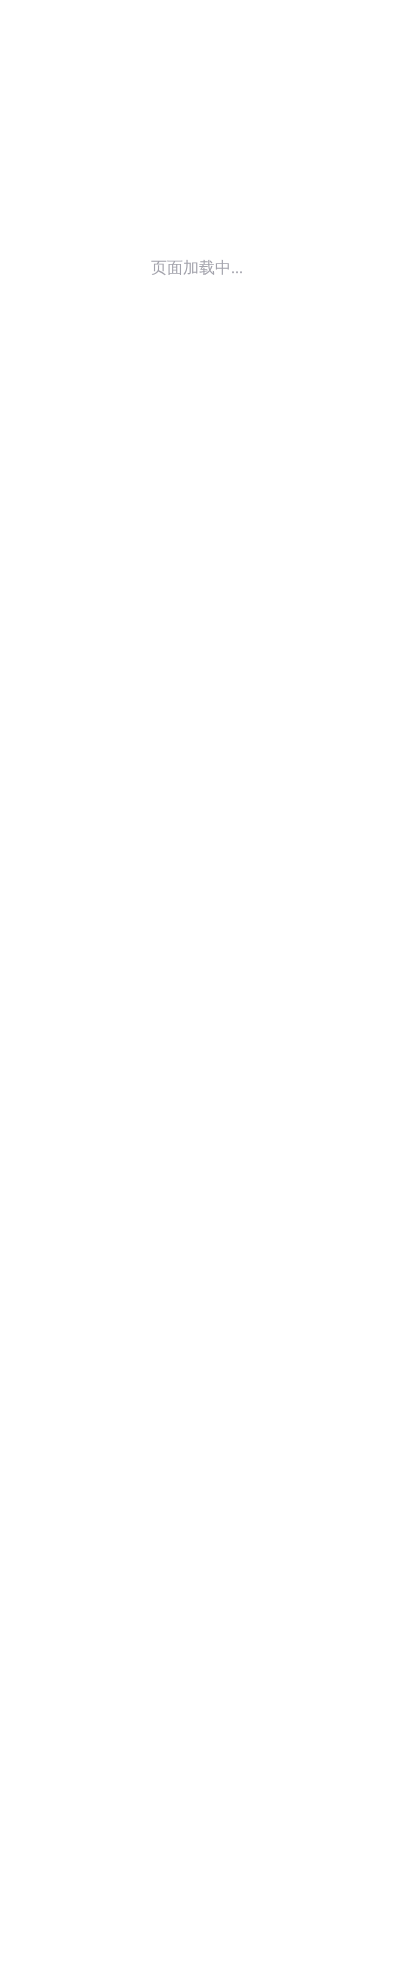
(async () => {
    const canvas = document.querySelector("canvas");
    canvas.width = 393;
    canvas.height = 1987;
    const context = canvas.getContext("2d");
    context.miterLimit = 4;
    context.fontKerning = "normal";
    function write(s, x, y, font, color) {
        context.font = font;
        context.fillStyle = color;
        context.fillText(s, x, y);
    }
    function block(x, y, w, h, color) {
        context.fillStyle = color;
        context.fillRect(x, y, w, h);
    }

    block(0, 0, 393, 1987, "rgb(255, 255, 255)");
    write("页面加载中", 151, 273, "500 16px WenQuanYi Zen Hei", "rgb(163, 163, 172)");
    write("...", 231, 273, "16px Liberation Serif", "rgb(163, 163, 172)");
})();
